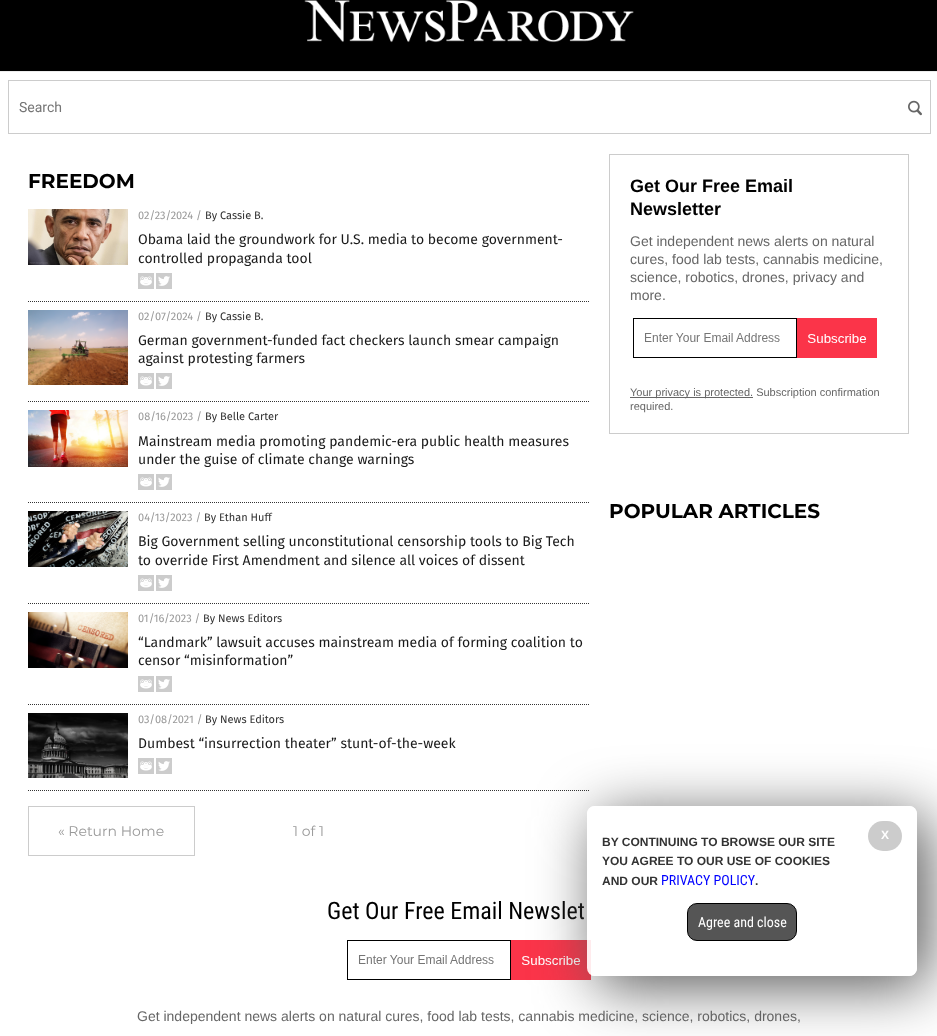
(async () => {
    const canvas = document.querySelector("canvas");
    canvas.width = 937;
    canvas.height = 1036;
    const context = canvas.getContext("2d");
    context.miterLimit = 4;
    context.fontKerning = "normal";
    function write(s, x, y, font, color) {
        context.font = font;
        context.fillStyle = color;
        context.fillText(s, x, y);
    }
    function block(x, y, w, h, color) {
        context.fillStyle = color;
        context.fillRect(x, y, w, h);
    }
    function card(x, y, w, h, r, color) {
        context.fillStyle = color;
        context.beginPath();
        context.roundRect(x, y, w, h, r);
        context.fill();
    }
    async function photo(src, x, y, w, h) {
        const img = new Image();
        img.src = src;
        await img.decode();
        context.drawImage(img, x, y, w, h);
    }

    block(0, 0, 937, 1036, "rgb(0, 0, 0)");
    await photo("media/1.png", 304, 0, 330, 43);
    block(0, 72, 937, 964, "rgb(255, 255, 255)");
    block(0, 71, 937, 1, "rgb(236, 236, 236)");
    context.strokeStyle = "rgb(204, 204, 204)";
    context.strokeRect(8.5, 80.5, 922, 53);
    write("Search", 19, 112, "14px Roboto", "rgb(117, 117, 117)");
    await photo("media/2.png", 908, 100, 14, 16);
    write("FREEDOM", 28, 188, "bold 20px Montserrat", "rgb(0, 0, 0)");
    context.beginPath();
    context.moveTo(28, 301.5);
    context.lineTo(589, 301.5);
    context.strokeStyle = "rgb(52, 52, 52)";
    context.setLineDash([1, 1]);
    context.stroke();
    await photo("media/3.png", 28, 209, 100, 56);
    write("02/23/2024 /", 138, 219, "11px Fira Sans", "rgb(153, 153, 153)");
    write("By Cassie B.", 205, 219, "11px Fira Sans", "rgb(51, 51, 51)");
    write("Obama laid the groundwork for U.S. media to become government-", 138, 244, "14px Fira Sans", "rgb(26, 26, 26)");
    write("controlled propaganda tool", 138, 263, "14px Fira Sans", "rgb(26, 26, 26)");
    await photo("media/4.png", 138, 273, 16, 16);
    await photo("media/5.png", 156, 273, 16, 16);
    context.beginPath();
    context.moveTo(28, 401.5);
    context.lineTo(589, 401.5);
    context.stroke();
    await photo("media/6.png", 28, 310, 100, 75);
    write("02/07/2024 /", 138, 320, "11px Fira Sans", "rgb(153, 153, 153)");
    write("By Cassie B.", 205, 320, "11px Fira Sans", "rgb(51, 51, 51)");
    write("German government-funded fact checkers launch smear campaign", 138, 345, "14px Fira Sans", "rgb(26, 26, 26)");
    write("against protesting farmers", 138, 363, "14px Fira Sans", "rgb(26, 26, 26)");
    await photo("media/4.png", 138, 373, 16, 16);
    await photo("media/5.png", 156, 373, 16, 16);
    context.beginPath();
    context.moveTo(28, 502.5);
    context.lineTo(589, 502.5);
    context.stroke();
    await photo("media/7.png", 28, 410, 100, 57);
    write("08/16/2023 /", 138, 420, "11px Fira Sans", "rgb(153, 153, 153)");
    write("By Belle Carter", 205, 420, "11px Fira Sans", "rgb(51, 51, 51)");
    write("Mainstream media promoting pandemic-era public health measures", 138, 446, "14px Fira Sans", "rgb(26, 26, 26)");
    write("under the guise of climate change warnings", 138, 464, "14px Fira Sans", "rgb(26, 26, 26)");
    await photo("media/4.png", 138, 474, 16, 16);
    await photo("media/5.png", 156, 474, 16, 16);
    context.beginPath();
    context.moveTo(28, 603.5);
    context.lineTo(589, 603.5);
    context.stroke();
    await photo("media/8.png", 28, 511, 100, 56);
    write("04/13/2023 /", 138, 521, "11px Fira Sans", "rgb(153, 153, 153)");
    write("By Ethan Huff", 204, 521, "11px Fira Sans", "rgb(51, 51, 51)");
    write("Big Government selling unconstitutional censorship tools to Big Tech", 138, 546, "14px Fira Sans", "rgb(26, 26, 26)");
    write("to override First Amendment and silence all voices of dissent", 138, 565, "14px Fira Sans", "rgb(26, 26, 26)");
    await photo("media/4.png", 138, 575, 16, 16);
    await photo("media/5.png", 156, 575, 16, 16);
    context.beginPath();
    context.moveTo(28, 704.5);
    context.lineTo(589, 704.5);
    context.stroke();
    await photo("media/9.png", 28, 612, 100, 56);
    write("01/16/2023 /", 138, 622, "11px Fira Sans", "rgb(153, 153, 153)");
    write("By News Editors", 203, 622, "11px Fira Sans", "rgb(51, 51, 51)");
    write("“Landmark” lawsuit accuses mainstream media of forming coalition to", 138, 647, "14px Fira Sans", "rgb(26, 26, 26)");
    write("censor “misinformation”", 138, 665, "14px Fira Sans", "rgb(26, 26, 26)");
    await photo("media/4.png", 138, 676, 16, 16);
    await photo("media/5.png", 156, 676, 16, 16);
    context.beginPath();
    context.moveTo(28, 790.5);
    context.lineTo(589, 790.5);
    context.stroke();
    await photo("media/10.png", 28, 713, 100, 65);
    write("03/08/2021 /", 138, 723, "11px Fira Sans", "rgb(153, 153, 153)");
    write("By News Editors", 205, 723, "11px Fira Sans", "rgb(51, 51, 51)");
    write("Dumbest “insurrection theater” stunt-of-the-week", 138, 748, "14px Fira Sans", "rgb(26, 26, 26)");
    await photo("media/4.png", 138, 758, 16, 16);
    await photo("media/5.png", 156, 758, 16, 16);
    context.strokeStyle = "rgb(204, 204, 204)";
    context.setLineDash([]);
    context.strokeRect(28.5, 806.5, 166, 49);
    write("« Return Home", 58, 836, "14px Montserrat", "rgb(153, 153, 153)");
    write("1 of 1", 293, 836, "14px Montserrat", "rgb(153, 153, 153)");
    context.strokeRect(609.5, 154.5, 299, 279);
    write("Get Our Free Email", 630, 192, "bold 18px Liberation Sans", "rgb(0, 0, 0)");
    write("Newsletter", 630, 215, "bold 18px Liberation Sans", "rgb(0, 0, 0)");
    write("Get independent news alerts on natural", 630, 246, "14px Liberation Sans", "rgb(102, 102, 102)");
    write("cures, food lab tests, cannabis medicine,", 630, 264, "14px Liberation Sans", "rgb(102, 102, 102)");
    write("science, robotics, drones, privacy and", 630, 282, "14px Liberation Sans", "rgb(102, 102, 102)");
    write("more.", 630, 300, "14px Liberation Sans", "rgb(102, 102, 102)");
    await photo("media/11.png", 633, 318, 244, 40);
    block(630, 397, 123, 1, "rgb(102, 102, 102)");
    write("Your privacy is protected. Subscription confirmation", 630, 396, "11px Liberation Sans", "rgb(102, 102, 102)");
    write("required.", 630, 410, "11px Liberation Sans", "rgb(102, 102, 102)");
    write("POPULAR ARTICLES", 609, 518, "bold 20px Montserrat", "rgb(0, 0, 0)");
    write("Get Our Free Email Newslet", 327, 919, "24px Roboto Condensed", "rgb(0, 0, 0)");
    await photo("media/11.png", 347, 940, 244, 40);
    write("Get independent news alerts on natural cures, food lab tests, cannabis medicine, science, robotics, drones,", 137, 1021, "14px Liberation Sans", "rgb(102, 102, 102)");
    context.save();
    context.beginPath();
    context.moveTo(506, 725);
    context.lineTo(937, 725);
    context.lineTo(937, 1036);
    context.lineTo(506, 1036);
    context.closePath();
    context.moveTo(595, 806);
    context.lineTo(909, 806);
    context.bezierCurveTo(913.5, 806, 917, 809.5, 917, 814);
    context.lineTo(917, 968);
    context.bezierCurveTo(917, 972.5, 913.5, 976, 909, 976);
    context.lineTo(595, 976);
    context.bezierCurveTo(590.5, 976, 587, 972.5, 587, 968);
    context.lineTo(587, 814);
    context.bezierCurveTo(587, 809.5, 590.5, 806, 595, 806);
    context.closePath();
    context.clip("evenodd");
    context.fillStyle = "rgb(85, 85, 85)";
    context.filter = "blur(30px)";
    context.beginPath();
    context.roundRect(597, 816, 330, 170, 8);
    context.fill();
    context.filter = "none";
    context.restore();
    card(587, 806, 330, 170, 8, "rgba(255, 255, 255, 0.9)");
    card(868, 821, 34, 30, 15, "rgb(204, 204, 204)");
    write("X", 881, 839, "bold 12px Liberation Sans", "rgb(255, 255, 255)");
    write("BY CONTINUING TO BROWSE OUR SITE", 602, 846, "bold 12px Liberation Sans", "rgb(51, 51, 51)");
    write("YOU AGREE TO OUR USE OF COOKIES", 602, 865, "bold 12px Liberation Sans", "rgb(51, 51, 51)");
    write("AND OUR", 602, 885, "bold 12px Liberation Sans", "rgb(51, 51, 51)");
    write("PRIVACY POLICY", 661, 885, "14px Roboto Condensed", "rgb(0, 0, 255)");
    write(".", 755, 885, "bold 12px Liberation Sans", "rgb(51, 51, 51)");
    context.fillStyle = "rgb(85, 85, 85)";
    context.beginPath();
    context.roundRect(687.5, 903.5, 109, 37, 9.5);
    context.fill();
    context.strokeStyle = "rgb(0, 0, 0)";
    context.stroke();
    write("Agree and close", 698, 927, "14px Roboto Condensed", "rgb(255, 255, 255)");
})();
